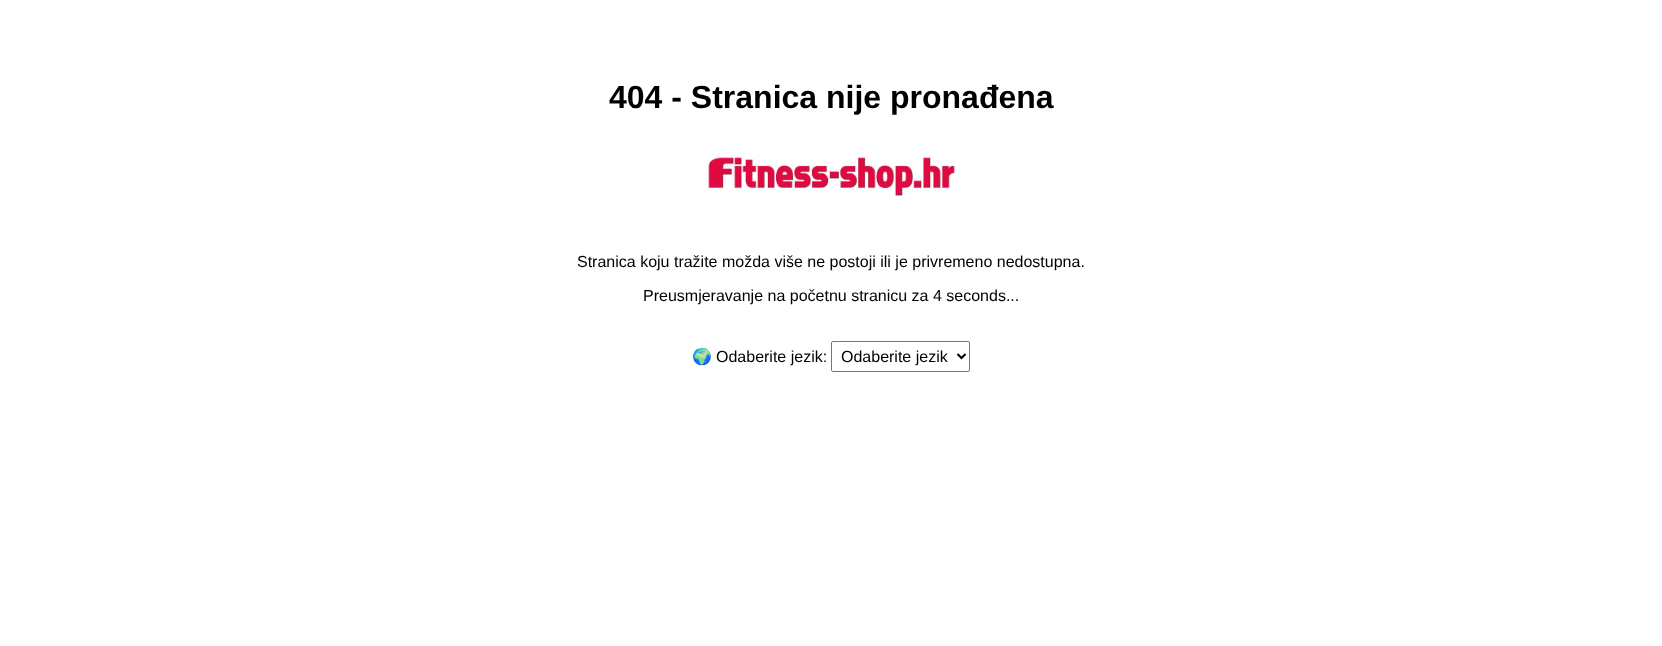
(async () => {
    const canvas = document.querySelector("canvas");
    canvas.width = 1662;
    canvas.height = 646;
    const context = canvas.getContext("2d");
    context.miterLimit = 4;
    context.fontKerning = "normal";
    function write(s, x, y, font, color) {
        context.font = font;
        context.fillStyle = color;
        context.fillText(s, x, y);
    }
    function block(x, y, w, h, color) {
        context.fillStyle = color;
        context.fillRect(x, y, w, h);
    }
    async function photo(src, x, y, w, h) {
        const img = new Image();
        img.src = src;
        await img.decode();
        context.drawImage(img, x, y, w, h);
    }

    block(0, 0, 1662, 646, "rgb(255, 255, 255)");
    write("404 - Stranica nije pronađena", 609, 108, "bold 32px Liberation Sans", "rgb(0, 0, 0)");
    await photo("media/1.png", 706, 156, 250, 40);
    write("Stranica koju tražite možda više ne postoji ili je privremeno nedostupna.", 577, 267, "16px Liberation Sans", "rgb(0, 0, 0)");
    write("Preusmjeravanje na početnu stranicu za 4 seconds...", 643, 301, "16px Liberation Sans", "rgb(0, 0, 0)");
    write("🌍", 692, 362, "16px Noto Color Emoji", "rgb(0, 0, 0)");
    write("Odaberite jezik:", 716, 362, "16px Liberation Sans", "rgb(0, 0, 0)");
    context.beginPath();
    context.roundRect(831.5, 341.5, 138, 30, 1.5);
    context.strokeStyle = "rgb(118, 118, 118)";
    context.stroke();
    context.beginPath();
    context.moveTo(957.5, 354);
    context.lineTo(961.5, 358);
    context.lineTo(965.5, 354);
    context.strokeStyle = "rgb(0, 0, 0)";
    context.lineWidth = 2;
    context.stroke();
    write("Odaberite jezik", 841, 362, "16px Liberation Sans", "rgb(0, 0, 0)");
})();
